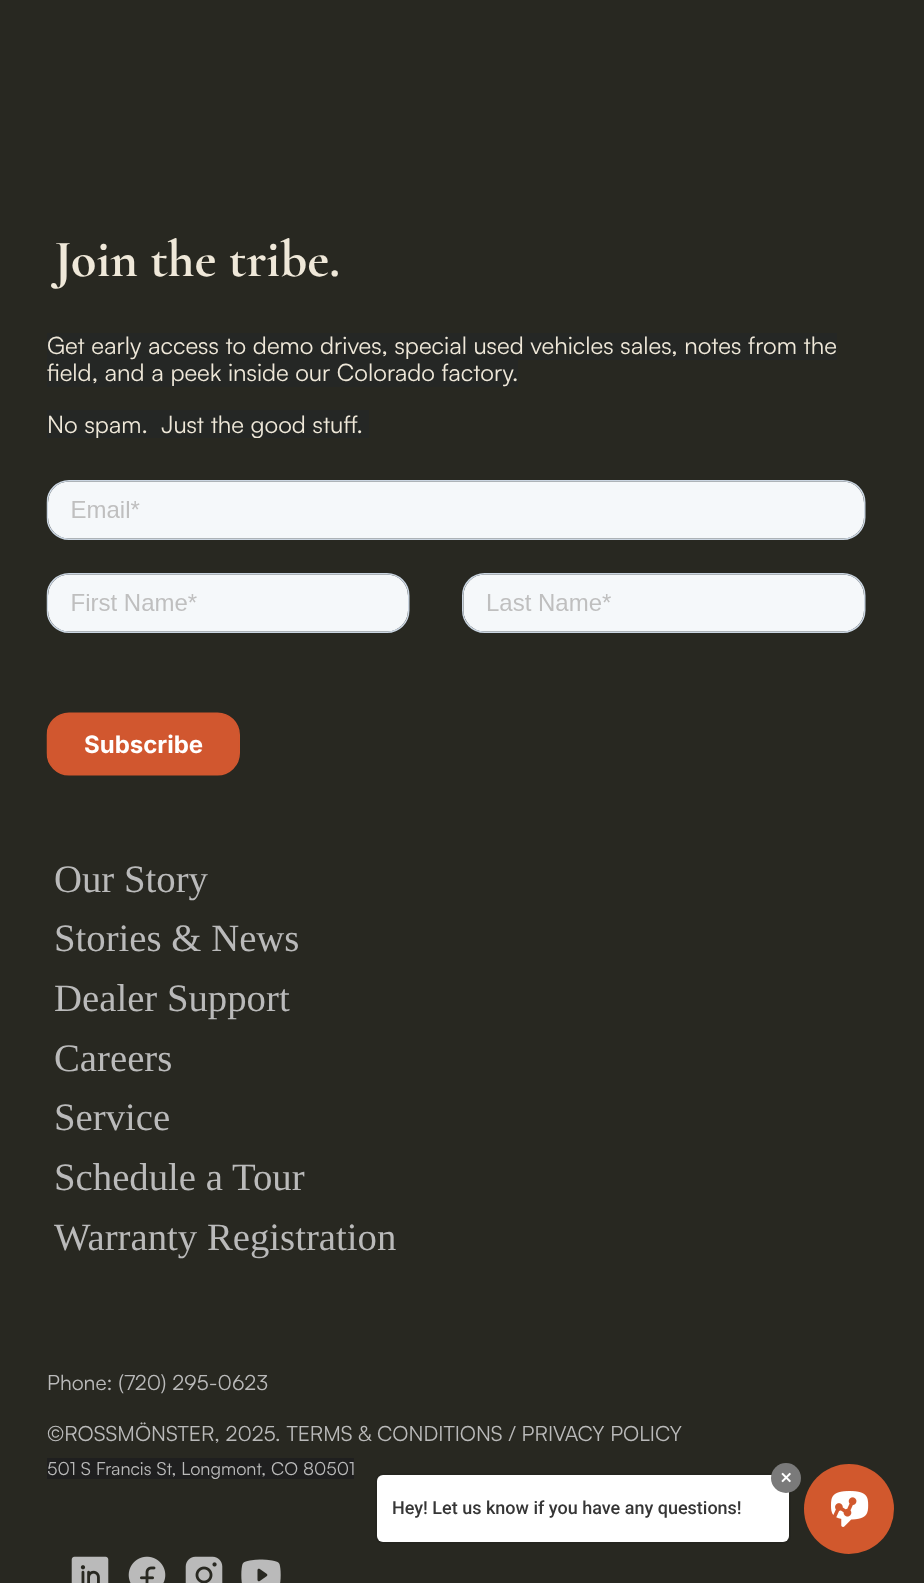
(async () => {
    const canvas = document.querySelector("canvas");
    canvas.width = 924;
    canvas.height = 1583;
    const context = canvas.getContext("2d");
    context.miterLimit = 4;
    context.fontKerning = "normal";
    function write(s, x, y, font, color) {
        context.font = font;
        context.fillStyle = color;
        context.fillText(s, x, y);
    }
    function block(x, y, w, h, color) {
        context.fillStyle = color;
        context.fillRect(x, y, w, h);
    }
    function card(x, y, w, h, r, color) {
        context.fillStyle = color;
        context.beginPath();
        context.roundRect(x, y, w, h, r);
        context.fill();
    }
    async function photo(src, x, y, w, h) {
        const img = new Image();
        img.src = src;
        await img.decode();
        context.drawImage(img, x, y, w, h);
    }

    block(0, 0, 924, 1583, "rgb(40, 40, 33)");
    block(47, 360, 471, 27, "rgb(37, 39, 37)");
    write("Join the tribe.", 54, 276, "bold 52.5px Cormorant Garamond", "rgb(239, 232, 217)");
    block(47, 333, 790, 27, "rgb(37, 39, 37)");
    write("Get early access to demo drives, special used vehicles sales, notes from the", 47, 354, "24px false", "rgb(239, 232, 217)");
    write("field, and a peek inside our Colorado factory.", 47, 381, "24px false", "rgb(239, 232, 217)");
    block(47, 410, 322, 28, "rgb(37, 39, 37)");
    context.save();
    context.beginPath();
    context.rect(47, 333, 831, 105);
    context.clip();
    write("No spam.  Just the good stuff.", 47, 433, "24px false", "rgb(239, 232, 217)");
    context.restore();
    await photo("media/1.png", 46, 480, 820, 296);
    write("Our Story", 54, 892, "38.75px Liberation Serif", "rgb(186, 186, 186)");
    write("Stories & News", 54, 951, "38.75px Liberation Serif", "rgb(186, 186, 186)");
    write("Dealer Support", 54, 1011, "38.75px Liberation Serif", "rgb(186, 186, 186)");
    write("Careers", 54, 1071, "38.75px Liberation Serif", "rgb(186, 186, 186)");
    write("Service", 54, 1130, "38.75px Liberation Serif", "rgb(186, 186, 186)");
    write("Schedule a Tour", 54, 1190, "38.75px Liberation Serif", "rgb(186, 186, 186)");
    write("Warranty Registration", 54, 1250, "38.75px Liberation Serif", "rgb(186, 186, 186)");
    write("Phone: (720) 295-0623", 47, 1390, "21px false", "rgb(186, 186, 186)");
    write("©ROSSMÖNSTER, 2025. TERMS & CONDITIONS / PRIVACY POLICY", 47, 1441, "21px false", "rgb(186, 186, 186)");
    block(47, 1458, 307, 21, "rgb(31, 31, 31)");
    write("501 S Francis St, Longmont, CO 80501", 47, 1475, "18px false", "rgb(186, 186, 186)");
    await photo("media/2.png", 71, 1556, 38, 27);
    await photo("media/3.png", 128, 1556, 38, 27);
    await photo("media/4.png", 185, 1556, 38, 27);
    await photo("media/5.png", 241, 1559, 40, 24);
    context.beginPath();
    context.roundRect(376, 1474, 414, 69, 7);
    context.strokeStyle = "rgb(37, 37, 31)";
    context.lineWidth = 2;
    context.stroke();
    card(377, 1475, 412, 67, 6, "rgb(255, 255, 255)");
    context.fillStyle = "rgb(122, 122, 122)";
    context.beginPath();
    context.arc(786, 1478, 15, 0, Math.PI * 2);
    context.fill();
    await photo("media/6.png", 781, 1472, 10, 11);
    write("Hey! Let us know if you have any questions!", 392, 1514, "500 18px Roboto", "rgb(54, 54, 54)");
    context.fillStyle = "rgb(209, 88, 45)";
    context.beginPath();
    context.arc(849, 1509, 45, 0, Math.PI * 2);
    context.fill();
    await photo("media/7.png", 831, 1491, 38, 36);
})();
